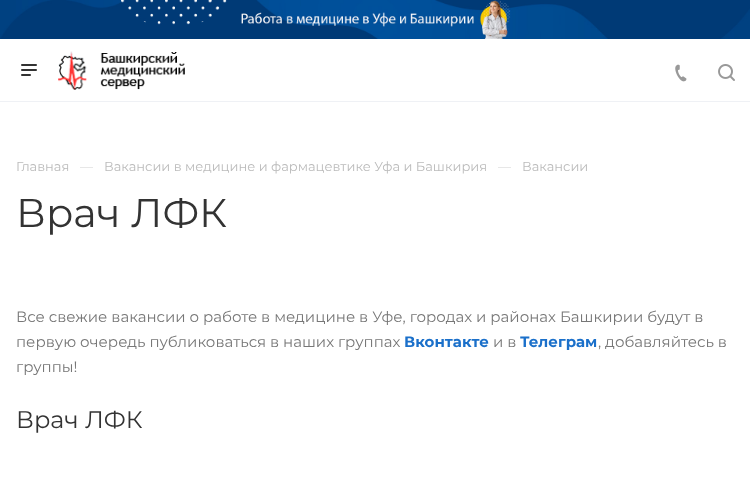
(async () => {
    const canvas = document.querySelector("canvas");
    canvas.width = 750;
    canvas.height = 484;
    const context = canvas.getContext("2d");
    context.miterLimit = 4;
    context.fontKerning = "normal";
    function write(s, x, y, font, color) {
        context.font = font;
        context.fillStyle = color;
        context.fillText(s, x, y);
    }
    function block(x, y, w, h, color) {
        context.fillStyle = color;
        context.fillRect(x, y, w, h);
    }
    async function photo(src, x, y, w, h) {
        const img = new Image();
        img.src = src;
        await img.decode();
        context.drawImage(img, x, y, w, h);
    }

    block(0, 0, 750, 484, "rgb(255, 255, 255)");
    await photo("media/1.png", 0, 0, 750, 39);
    block(0, 101, 750, 1, "rgb(239, 241, 245)");
    await photo("media/2.png", 21, 64, 16, 12);
    await photo("media/3.png", 58, 51, 127, 39);
    await photo("media/4.png", 675, 64, 12, 18);
    await photo("media/5.png", 718, 64, 17, 17);
    write("Главная", 16, 171, "13px Montserrat", "rgb(187, 187, 187)");
    write("—", 80, 171, "13px Montserrat", "rgb(221, 221, 221)");
    write("Вакансии в медицине и фармацевтике Уфа и Башкирия", 104, 171, "13px Montserrat", "rgb(187, 187, 187)");
    write("—", 498, 171, "13px Montserrat", "rgb(221, 221, 221)");
    write("Вакансии", 522, 171, "13px Montserrat", "rgb(187, 187, 187)");
    write("Врач ЛФК", 16, 227, "40px Montserrat", "rgb(51, 51, 51)");
    write("Все свежие вакансии о работе в медицине в Уфе, городах и районах Башкирии будут в", 16, 322, "15px Montserrat", "rgb(119, 119, 119)");
    write("первую очередь публиковаться в наших группах", 16, 347, "15px Montserrat", "rgb(119, 119, 119)");
    write("Вконтакте", 404, 347, "bold 15px Montserrat", "rgb(27, 112, 202)");
    write("и в", 493, 347, "15px Montserrat", "rgb(119, 119, 119)");
    write("Телеграм", 520, 347, "bold 15px Montserrat", "rgb(27, 112, 202)");
    write(", добавляйтесь в", 598, 347, "15px Montserrat", "rgb(119, 119, 119)");
    write("группы!", 16, 372, "15px Montserrat", "rgb(119, 119, 119)");
    write("Врач ЛФК", 16, 428, "24px Montserrat", "rgb(51, 51, 51)");
})();
